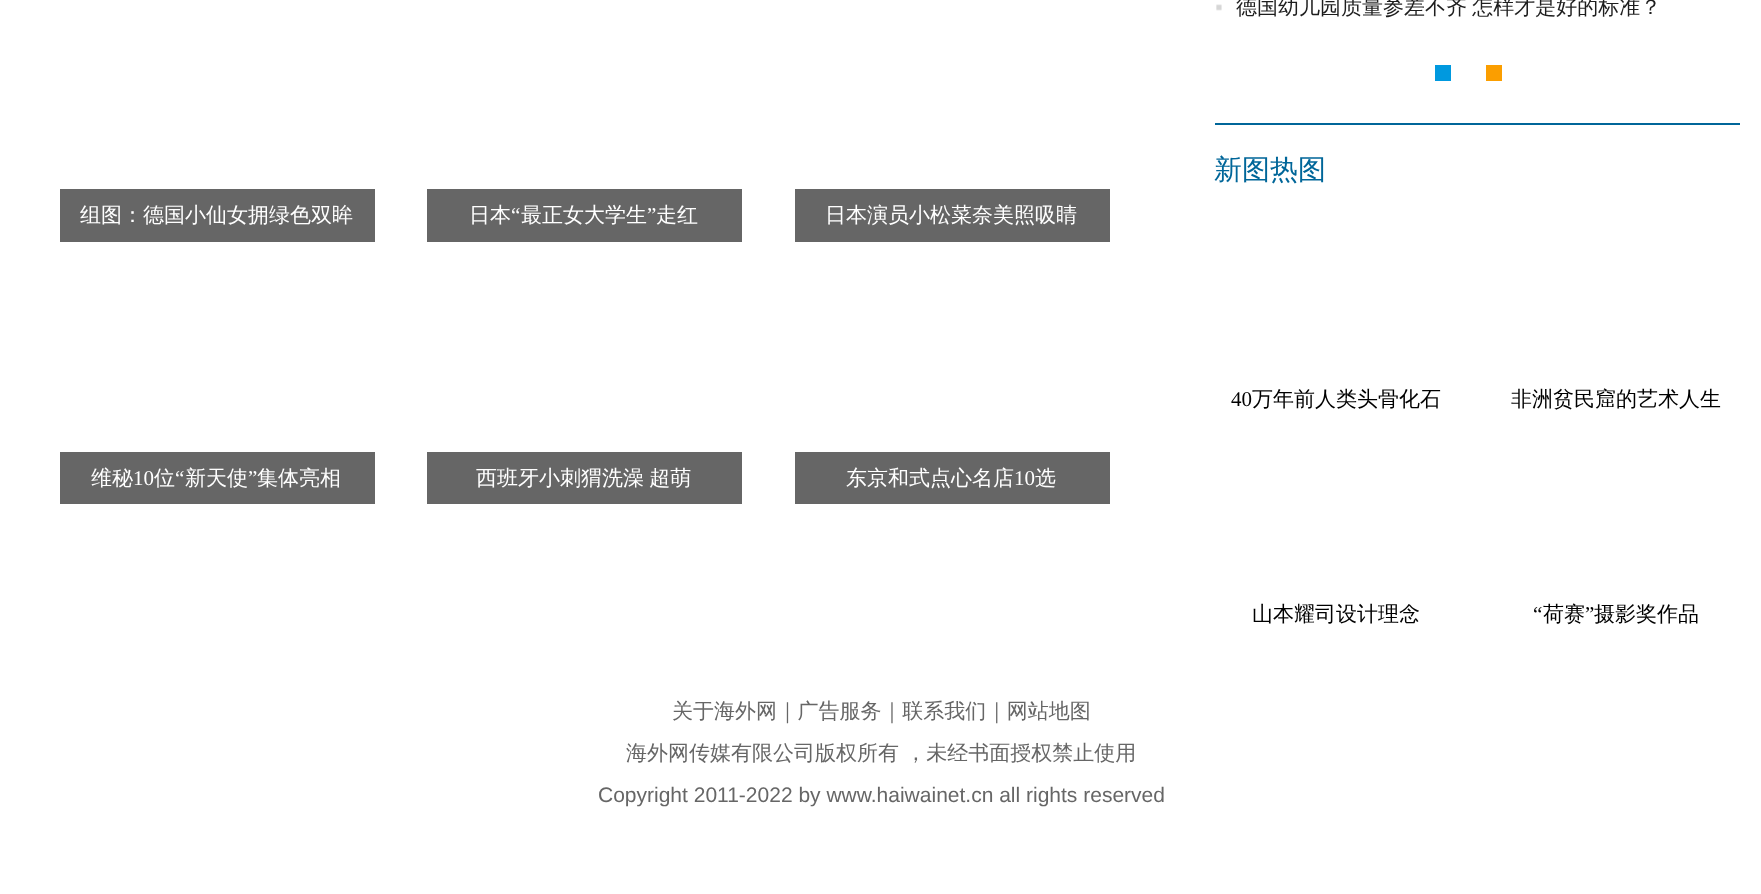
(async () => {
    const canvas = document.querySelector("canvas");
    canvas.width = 1761;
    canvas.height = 894;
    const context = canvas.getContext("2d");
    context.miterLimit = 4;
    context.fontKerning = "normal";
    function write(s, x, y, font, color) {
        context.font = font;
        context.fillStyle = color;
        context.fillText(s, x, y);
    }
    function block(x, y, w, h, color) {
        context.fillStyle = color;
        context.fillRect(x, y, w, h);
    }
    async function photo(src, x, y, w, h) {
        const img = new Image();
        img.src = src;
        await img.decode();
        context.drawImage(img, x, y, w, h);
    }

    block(0, 0, 1761, 894, "rgb(255, 255, 255)");
    block(60, 189, 315, 53, "rgb(102, 102, 102)");
    write("组图：德国小仙女拥绿色双眸", 80, 222, "500 21px WenQuanYi Zen Hei", "rgb(255, 255, 255)");
    block(427, 189, 315, 53, "rgb(102, 102, 102)");
    write("日本", 469, 222, "500 21px WenQuanYi Zen Hei", "rgb(255, 255, 255)");
    write("“", 511, 222, "21px Liberation Serif", "rgb(255, 255, 255)");
    write("最正女大学生", 521, 222, "500 21px WenQuanYi Zen Hei", "rgb(255, 255, 255)");
    write("”", 647, 222, "21px Liberation Serif", "rgb(255, 255, 255)");
    write("走红", 656, 222, "500 21px WenQuanYi Zen Hei", "rgb(255, 255, 255)");
    block(795, 189, 315, 53, "rgb(102, 102, 102)");
    write("日本演员小松菜奈美照吸睛", 825, 222, "500 21px WenQuanYi Zen Hei", "rgb(255, 255, 255)");
    block(60, 452, 315, 52, "rgb(102, 102, 102)");
    write("维秘", 91, 485, "500 21px WenQuanYi Zen Hei", "rgb(255, 255, 255)");
    write("10", 133, 485, "21px Liberation Serif", "rgb(255, 255, 255)");
    write("位", 154, 485, "500 21px WenQuanYi Zen Hei", "rgb(255, 255, 255)");
    write("“", 175, 485, "21px Liberation Serif", "rgb(255, 255, 255)");
    write("新天使", 185, 485, "500 21px WenQuanYi Zen Hei", "rgb(255, 255, 255)");
    write("”", 248, 485, "21px Liberation Serif", "rgb(255, 255, 255)");
    write("集体亮相", 257, 485, "500 21px WenQuanYi Zen Hei", "rgb(255, 255, 255)");
    block(427, 452, 315, 52, "rgb(102, 102, 102)");
    context.wordSpacing = "-1px";
    write("西班牙小刺猬洗澡 超萌", 476, 485, "500 21px WenQuanYi Zen Hei", "rgb(255, 255, 255)");
    block(795, 452, 315, 52, "rgb(102, 102, 102)");
    context.wordSpacing = "0px";
    write("东京和式点心名店", 846, 485, "500 21px WenQuanYi Zen Hei", "rgb(255, 255, 255)");
    write("10", 1014, 485, "21px Liberation Serif", "rgb(255, 255, 255)");
    write("选", 1035, 485, "500 21px WenQuanYi Zen Hei", "rgb(255, 255, 255)");
    await photo("media/1.png", 1216, 4, 6, 7);
    context.wordSpacing = "-1px";
    write("德国幼儿园质量参差不齐 怎样才是好的标准？", 1236, 14, "500 21px WenQuanYi Zen Hei", "rgb(30, 30, 30)");
    block(1435, 65, 16, 16, "rgb(0, 153, 223)");
    block(1486, 65, 16, 16, "rgb(251, 158, 0)");
    block(1215, 123, 525, 2, "rgb(0, 102, 153)");
    context.wordSpacing = "0px";
    write("新图热图", 1214, 179, "500 28px WenQuanYi Zen Hei", "rgb(0, 102, 153)");
    write("40", 1231, 406, "21px Liberation Serif", "rgb(0, 0, 0)");
    write("万年前人类头骨化石", 1252, 406, "500 21px WenQuanYi Zen Hei", "rgb(0, 0, 0)");
    write("非洲贫民窟的艺术人生", 1511, 406, "500 21px WenQuanYi Zen Hei", "rgb(0, 0, 0)");
    write("山本耀司设计理念", 1252, 621, "500 21px WenQuanYi Zen Hei", "rgb(0, 0, 0)");
    write("“", 1533, 621, "21px Liberation Serif", "rgb(0, 0, 0)");
    write("荷赛", 1543, 621, "500 21px WenQuanYi Zen Hei", "rgb(0, 0, 0)");
    write("”", 1585, 621, "21px Liberation Serif", "rgb(0, 0, 0)");
    write("摄影奖作品", 1594, 621, "500 21px WenQuanYi Zen Hei", "rgb(0, 0, 0)");
    write("关于海外网｜广告服务｜联系我们｜网站地图", 672, 718, "500 21px WenQuanYi Zen Hei", "rgb(102, 102, 102)");
    write("海外网传媒有限公司版权所有 ，未经书面授权禁止使用", 626, 760, "500 21px WenQuanYi Zen Hei", "rgb(102, 102, 102)");
    write("Copyright 2011-2022 by www.haiwainet.cn all rights reserved", 598, 802, "21px Liberation Sans", "rgb(102, 102, 102)");
})();
